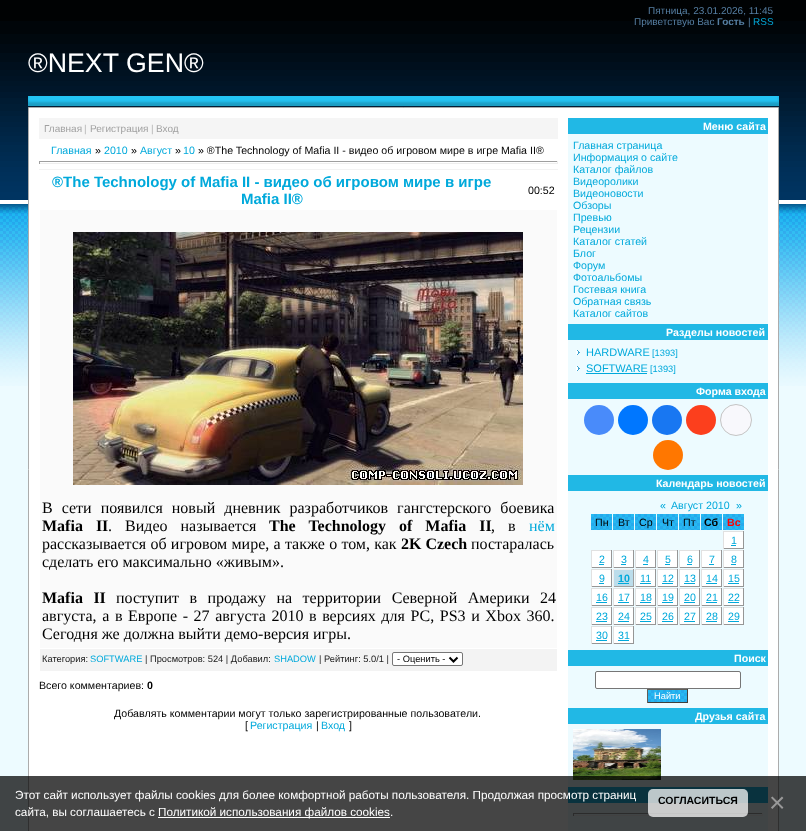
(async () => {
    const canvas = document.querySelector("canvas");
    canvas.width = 806;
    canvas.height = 831;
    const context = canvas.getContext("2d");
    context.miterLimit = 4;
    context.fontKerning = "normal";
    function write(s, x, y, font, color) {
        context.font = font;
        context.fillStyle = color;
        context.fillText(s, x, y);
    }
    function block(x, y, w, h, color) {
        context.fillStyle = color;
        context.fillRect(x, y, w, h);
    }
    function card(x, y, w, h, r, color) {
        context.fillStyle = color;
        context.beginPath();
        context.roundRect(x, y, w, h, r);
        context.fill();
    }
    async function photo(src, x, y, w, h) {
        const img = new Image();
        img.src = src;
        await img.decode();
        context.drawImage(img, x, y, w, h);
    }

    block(0, 0, 806, 831, "rgb(237, 251, 255)");
    await photo("media/1.png", 0, 0, 806, 386);
    write("Пятница, 23.01.2026, 11:45", 648, 14, "10px Liberation Sans", "rgb(85, 127, 163)");
    write("Приветствую Вас", 634, 25, "10px Liberation Sans", "rgb(85, 127, 163)");
    write("Гость", 717, 25, "bold 10px Liberation Sans", "rgb(85, 127, 163)");
    write("|", 748, 25, "10px Liberation Sans", "rgb(85, 127, 163)");
    write("RSS", 753, 25, "10px Liberation Sans", "rgb(0, 169, 219)");
    write("®NEXT GEN®", 28, 72, "26.75px Liberation Sans", "rgb(255, 255, 255)");
    await photo("media/2.png", 28, 96, 751, 10);
    context.beginPath();
    context.rect(28.5, 107.5, 750, 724);
    context.fill();
    context.strokeStyle = "rgb(172, 172, 172)";
    context.stroke();
    block(39, 118, 519, 21, "rgb(245, 245, 245)");
    write("Главная", 44, 132, "10px Liberation Sans", "rgb(161, 161, 161)");
    write("|", 84, 132, "10px Liberation Sans", "rgb(183, 183, 183)");
    write("Регистрация", 90, 132, "10px Liberation Sans", "rgb(161, 161, 161)");
    write("|", 151, 132, "10px Liberation Sans", "rgb(183, 183, 183)");
    write("Вход", 156, 132, "10px Liberation Sans", "rgb(161, 161, 161)");
    write("Главная", 51, 154, "10.65px Liberation Sans", "rgb(0, 169, 219)");
    write("»", 95, 154, "10.65px Liberation Sans", "rgb(0, 0, 0)");
    write("2010", 104, 154, "10.65px Liberation Sans", "rgb(0, 169, 219)");
    write("»", 131, 154, "10.65px Liberation Sans", "rgb(0, 0, 0)");
    write("Август", 140, 154, "10.65px Liberation Sans", "rgb(0, 169, 219)");
    write("»", 175, 154, "10.65px Liberation Sans", "rgb(0, 0, 0)");
    write("10", 183, 154, "10.65px Liberation Sans", "rgb(0, 169, 219)");
    write("» ®The Technology of Mafia II - видео об игровом мире в игре Mafia II®", 198, 154, "10.65px Liberation Sans", "rgb(0, 0, 0)");
    block(39, 161, 519, 1, "rgb(159, 159, 159)");
    block(557, 161, 1, 3, "rgb(238, 238, 238)");
    block(39, 163, 519, 1, "rgb(238, 238, 238)");
    block(39, 161, 1, 3, "rgb(159, 159, 159)");
    block(39, 169, 519, 1, "rgb(243, 243, 243)");
    write("®The Technology of Mafia II - видео об игровом мире в игре", 52, 187, "bold 15px Liberation Sans", "rgb(0, 169, 219)");
    write("Mafia II®", 241, 204, "bold 15px Liberation Sans", "rgb(0, 169, 219)");
    write("00:52", 528, 194, "10.65px Liberation Sans", "rgb(0, 0, 0)");
    block(40, 210, 517, 438, "rgb(250, 250, 250)");
    await photo("media/3.png", 73, 232, 450, 253);
    context.wordSpacing = "5px";
    write("В сети появился новый дневник разработчиков гангстерского боевика", 42, 513, "16px Liberation Serif", "rgb(0, 0, 0)");
    context.wordSpacing = "9px";
    write("Mafia II", 42, 531, "bold 16px Liberation Serif", "rgb(0, 0, 0)");
    write(". Видео называется", 108, 531, "16px Liberation Serif", "rgb(0, 0, 0)");
    write("The Technology of Mafia II", 269, 531, "bold 16px Liberation Serif", "rgb(0, 0, 0)");
    write(", в", 491, 531, "16px Liberation Serif", "rgb(0, 0, 0)");
    context.wordSpacing = "0px";
    write("нём", 529, 531, "16px Liberation Serif", "rgb(0, 169, 219)");
    context.wordSpacing = "0.25px";
    write("рассказывается об игровом мире, а также о том, как", 42, 549, "16px Liberation Serif", "rgb(0, 0, 0)");
    context.wordSpacing = "0px";
    write("2K Czech", 401, 549, "bold 16px Liberation Serif", "rgb(0, 0, 0)");
    write("постаралась", 471, 549, "16px Liberation Serif", "rgb(0, 0, 0)");
    write("сделать его максимально «живым».", 42, 567, "16px Liberation Serif", "rgb(0, 0, 0)");
    context.wordSpacing = "6.5px";
    write("Mafia II", 42, 603, "bold 16px Liberation Serif", "rgb(0, 0, 0)");
    write("поступит в продажу на территории Северной Америки 24", 116, 603, "16px Liberation Serif", "rgb(0, 0, 0)");
    context.wordSpacing = "1.6px";
    write("августа, а в Европе - 27 августа 2010 в версиях для РС, PS3 и Xbox 360.", 42, 621, "16px Liberation Serif", "rgb(0, 0, 0)");
    context.wordSpacing = "0px";
    write("Сегодня же должна выйти демо-версия игры.", 42, 639, "16px Liberation Serif", "rgb(0, 0, 0)");
    block(40, 649, 517, 22, "rgb(243, 243, 243)");
    write("Категория:", 42, 662, "9.3px Liberation Sans", "rgb(26, 26, 26)");
    write("SOFTWARE", 90, 662, "9.3px Liberation Sans", "rgb(0, 169, 219)");
    write("| Просмотров: 524 | Добавил:", 145, 662, "9.3px Liberation Sans", "rgb(26, 26, 26)");
    write("SHADOW", 274, 662, "9.3px Liberation Sans", "rgb(0, 169, 219)");
    write("| Рейтинг: 5.0/1 |", 319, 662, "9.3px Liberation Sans", "rgb(26, 26, 26)");
    context.fillStyle = "rgb(255, 255, 255)";
    context.beginPath();
    context.roundRect(392.5, 652.5, 70, 13, 1.5);
    context.fill();
    context.strokeStyle = "rgb(118, 118, 118)";
    context.stroke();
    context.beginPath();
    context.moveTo(449.5, 657.5);
    context.lineTo(453.5, 661.5);
    context.lineTo(457.5, 657.5);
    context.strokeStyle = "rgb(0, 0, 0)";
    context.lineWidth = 2;
    context.stroke();
    write("- Оценить -", 397, 662, "9.3px Liberation Sans", "rgb(0, 0, 0)");
    write("Всего комментариев:", 39, 689, "10.65px Liberation Sans", "rgb(0, 0, 0)");
    write("0", 147, 689, "bold 10.65px Liberation Sans", "rgb(0, 0, 0)");
    write("Добавлять комментарии могут только зарегистрированные пользователи.", 114, 717, "10.65px Liberation Sans", "rgb(0, 0, 0)");
    write("[", 245, 729, "10.65px Liberation Sans", "rgb(0, 0, 0)");
    write("Регистрация", 250, 729, "10.65px Liberation Sans", "rgb(0, 169, 219)");
    write("|", 316, 729, "10.65px Liberation Sans", "rgb(0, 0, 0)");
    write("Вход", 321, 729, "10.65px Liberation Sans", "rgb(0, 169, 219)");
    write("]", 349, 729, "10.65px Liberation Sans", "rgb(0, 0, 0)");
    block(568, 134, 200, 697, "rgb(237, 251, 255)");
    block(568, 118, 200, 16, "rgb(33, 184, 229)");
    write("Меню сайта", 703, 130, "bold 10.65px Liberation Sans", "rgb(255, 255, 255)");
    write("Главная страница", 573, 149, "10.65px Liberation Sans", "rgb(0, 169, 219)");
    write("Информация о сайте", 573, 161, "10.65px Liberation Sans", "rgb(0, 169, 219)");
    write("Каталог файлов", 573, 173, "10.65px Liberation Sans", "rgb(0, 169, 219)");
    write("Видеоролики", 573, 185, "10.65px Liberation Sans", "rgb(0, 169, 219)");
    write("Видеоновости", 573, 197, "10.65px Liberation Sans", "rgb(0, 169, 219)");
    write("Обзоры", 573, 209, "10.65px Liberation Sans", "rgb(0, 169, 219)");
    write("Превью", 573, 221, "10.65px Liberation Sans", "rgb(0, 169, 219)");
    write("Рецензии", 573, 233, "10.65px Liberation Sans", "rgb(0, 169, 219)");
    write("Каталог статей", 573, 245, "10.65px Liberation Sans", "rgb(0, 169, 219)");
    write("Блог", 573, 257, "10.65px Liberation Sans", "rgb(0, 169, 219)");
    write("Форум", 573, 269, "10.65px Liberation Sans", "rgb(0, 169, 219)");
    write("Фотоальбомы", 573, 281, "10.65px Liberation Sans", "rgb(0, 169, 219)");
    write("Гостевая книга", 573, 293, "10.65px Liberation Sans", "rgb(0, 169, 219)");
    write("Обратная связь", 573, 305, "10.65px Liberation Sans", "rgb(0, 169, 219)");
    write("Каталог сайтов", 573, 317, "10.65px Liberation Sans", "rgb(0, 169, 219)");
    block(568, 324, 200, 16, "rgb(33, 184, 229)");
    write("Разделы новостей", 666, 336, "bold 10.65px Liberation Sans", "rgb(255, 255, 255)");
    await photo("media/4.png", 576, 350, 4, 5);
    write("HARDWARE", 586, 356, "11px Liberation Sans", "rgb(0, 169, 219)");
    write("[1393]", 652, 356, "9.3px Liberation Sans", "rgb(0, 169, 219)");
    await photo("media/4.png", 576, 366, 4, 5);
    write("SOFTWARE", 586, 372, "11px Liberation Sans", "rgb(0, 169, 219)");
    block(586, 373, 61, 1, "rgb(0, 169, 219)");
    write("[1393]", 650, 372, "9.3px Liberation Sans", "rgb(0, 169, 219)");
    block(568, 383, 200, 16, "rgb(33, 184, 229)");
    write("Форма входа", 696, 395, "bold 10.65px Liberation Sans", "rgb(255, 255, 255)");
    context.fillStyle = "rgb(73, 139, 250)";
    context.beginPath();
    context.arc(599, 420, 15, 0, Math.PI * 2);
    context.fill();
    context.fillStyle = "rgb(0, 119, 255)";
    context.beginPath();
    context.arc(633, 420, 15, 0, Math.PI * 2);
    context.fill();
    context.fillStyle = "rgb(24, 119, 242)";
    context.beginPath();
    context.arc(667, 420, 15, 0, Math.PI * 2);
    context.fill();
    context.fillStyle = "rgb(252, 63, 29)";
    context.beginPath();
    context.arc(701, 420, 15, 0, Math.PI * 2);
    context.fill();
    context.fillStyle = "rgb(248, 248, 252)";
    context.beginPath();
    context.arc(736, 420, 15.5, 0, Math.PI * 2);
    context.fill();
    context.strokeStyle = "rgb(196, 196, 196)";
    context.lineWidth = 1;
    context.stroke();
    context.fillStyle = "rgb(255, 119, 0)";
    context.beginPath();
    context.arc(668, 455, 15, 0, Math.PI * 2);
    context.fill();
    block(568, 475, 200, 16, "rgb(33, 184, 229)");
    write("Календарь новостей", 656, 487, "bold 10.65px Liberation Sans", "rgb(255, 255, 255)");
    write("«", 660, 509, "10.65px Liberation Sans", "rgb(0, 169, 219)");
    write("Август 2010", 671, 509, "10.65px Liberation Sans", "rgb(0, 169, 219)");
    write("»", 736, 509, "10.65px Liberation Sans", "rgb(0, 169, 219)");
    await photo("media/5.png", 591, 514, 21, 16);
    write("Пн", 595, 526, "10.65px Liberation Sans", "rgb(0, 0, 0)");
    await photo("media/5.png", 613, 514, 21, 16);
    write("Вт", 618, 526, "10.65px Liberation Sans", "rgb(0, 0, 0)");
    await photo("media/5.png", 635, 514, 21, 16);
    write("Ср", 639, 526, "10.65px Liberation Sans", "rgb(0, 0, 0)");
    await photo("media/5.png", 657, 514, 21, 16);
    write("Чт", 662, 526, "10.65px Liberation Sans", "rgb(0, 0, 0)");
    await photo("media/5.png", 679, 514, 21, 16);
    write("Пт", 683, 526, "10.65px Liberation Sans", "rgb(0, 0, 0)");
    await photo("media/5.png", 701, 514, 21, 16);
    write("Сб", 704, 526, "bold 10.65px Liberation Sans", "rgb(0, 0, 0)");
    await photo("media/5.png", 723, 514, 21, 16);
    write("Вс", 727, 526, "bold 10.65px Liberation Sans", "rgb(255, 0, 0)");
    block(724, 532, 19, 16, "rgb(255, 255, 255)");
    block(723, 531, 21, 1, "rgb(225, 225, 225)");
    block(743, 531, 1, 18, "rgb(150, 150, 150)");
    block(723, 548, 21, 1, "rgb(150, 150, 150)");
    block(723, 531, 1, 18, "rgb(225, 225, 225)");
    write("1", 731, 544, "10.65px Liberation Sans", "rgb(0, 169, 219)");
    block(731, 545, 5, 1, "rgb(0, 169, 219)");
    block(592, 551, 19, 16, "rgb(255, 255, 255)");
    block(591, 550, 21, 1, "rgb(225, 225, 225)");
    block(611, 550, 1, 18, "rgb(150, 150, 150)");
    block(591, 567, 21, 1, "rgb(150, 150, 150)");
    block(591, 550, 1, 18, "rgb(225, 225, 225)");
    write("2", 599, 563, "10.65px Liberation Sans", "rgb(0, 169, 219)");
    block(599, 564, 5, 1, "rgb(0, 169, 219)");
    block(614, 551, 19, 16, "rgb(255, 255, 255)");
    block(613, 550, 21, 1, "rgb(225, 225, 225)");
    block(633, 550, 1, 18, "rgb(150, 150, 150)");
    block(613, 567, 21, 1, "rgb(150, 150, 150)");
    block(613, 550, 1, 18, "rgb(225, 225, 225)");
    write("3", 621, 563, "10.65px Liberation Sans", "rgb(0, 169, 219)");
    block(621, 564, 5, 1, "rgb(0, 169, 219)");
    block(636, 551, 19, 16, "rgb(255, 255, 255)");
    block(635, 550, 21, 1, "rgb(225, 225, 225)");
    block(655, 550, 1, 18, "rgb(150, 150, 150)");
    block(635, 567, 21, 1, "rgb(150, 150, 150)");
    block(635, 550, 1, 18, "rgb(225, 225, 225)");
    write("4", 643, 563, "10.65px Liberation Sans", "rgb(0, 169, 219)");
    block(643, 564, 5, 1, "rgb(0, 169, 219)");
    block(658, 551, 19, 16, "rgb(255, 255, 255)");
    block(657, 550, 21, 1, "rgb(225, 225, 225)");
    block(677, 550, 1, 18, "rgb(150, 150, 150)");
    block(657, 567, 21, 1, "rgb(150, 150, 150)");
    block(657, 550, 1, 18, "rgb(225, 225, 225)");
    write("5", 665, 563, "10.65px Liberation Sans", "rgb(0, 169, 219)");
    block(665, 564, 5, 1, "rgb(0, 169, 219)");
    block(680, 551, 19, 16, "rgb(255, 255, 255)");
    block(679, 550, 21, 1, "rgb(225, 225, 225)");
    block(699, 550, 1, 18, "rgb(150, 150, 150)");
    block(679, 567, 21, 1, "rgb(150, 150, 150)");
    block(679, 550, 1, 18, "rgb(225, 225, 225)");
    write("6", 687, 563, "10.65px Liberation Sans", "rgb(0, 169, 219)");
    block(687, 564, 5, 1, "rgb(0, 169, 219)");
    block(702, 551, 19, 16, "rgb(255, 255, 255)");
    block(701, 550, 21, 1, "rgb(225, 225, 225)");
    block(721, 550, 1, 18, "rgb(150, 150, 150)");
    block(701, 567, 21, 1, "rgb(150, 150, 150)");
    block(701, 550, 1, 18, "rgb(225, 225, 225)");
    write("7", 709, 563, "10.65px Liberation Sans", "rgb(0, 169, 219)");
    block(709, 564, 5, 1, "rgb(0, 169, 219)");
    block(724, 551, 19, 16, "rgb(255, 255, 255)");
    block(723, 550, 21, 1, "rgb(225, 225, 225)");
    block(743, 550, 1, 18, "rgb(150, 150, 150)");
    block(723, 567, 21, 1, "rgb(150, 150, 150)");
    block(723, 550, 1, 18, "rgb(225, 225, 225)");
    write("8", 731, 563, "10.65px Liberation Sans", "rgb(0, 169, 219)");
    block(731, 564, 5, 1, "rgb(0, 169, 219)");
    block(592, 570, 19, 16, "rgb(255, 255, 255)");
    block(591, 569, 21, 1, "rgb(225, 225, 225)");
    block(611, 569, 1, 18, "rgb(150, 150, 150)");
    block(591, 586, 21, 1, "rgb(150, 150, 150)");
    block(591, 569, 1, 18, "rgb(225, 225, 225)");
    write("9", 599, 582, "10.65px Liberation Sans", "rgb(0, 169, 219)");
    block(599, 583, 5, 1, "rgb(0, 169, 219)");
    block(614, 570, 19, 16, "rgb(188, 221, 235)");
    block(613, 569, 21, 1, "rgb(238, 238, 238)");
    block(633, 569, 1, 18, "rgb(159, 159, 159)");
    block(613, 586, 21, 1, "rgb(159, 159, 159)");
    block(613, 569, 1, 18, "rgb(238, 238, 238)");
    write("10", 618, 582, "bold 10.65px Liberation Sans", "rgb(0, 169, 219)");
    block(618, 583, 11, 1, "rgb(0, 169, 219)");
    block(636, 570, 19, 16, "rgb(255, 255, 255)");
    block(635, 569, 21, 1, "rgb(225, 225, 225)");
    block(655, 569, 1, 18, "rgb(150, 150, 150)");
    block(635, 586, 21, 1, "rgb(150, 150, 150)");
    block(635, 569, 1, 18, "rgb(225, 225, 225)");
    write("11", 640, 582, "10.65px Liberation Sans", "rgb(0, 169, 219)");
    block(640, 583, 11, 1, "rgb(0, 169, 219)");
    block(658, 570, 19, 16, "rgb(255, 255, 255)");
    block(657, 569, 21, 1, "rgb(225, 225, 225)");
    block(677, 569, 1, 18, "rgb(150, 150, 150)");
    block(657, 586, 21, 1, "rgb(150, 150, 150)");
    block(657, 569, 1, 18, "rgb(225, 225, 225)");
    write("12", 662, 582, "10.65px Liberation Sans", "rgb(0, 169, 219)");
    block(662, 583, 11, 1, "rgb(0, 169, 219)");
    block(680, 570, 19, 16, "rgb(255, 255, 255)");
    block(679, 569, 21, 1, "rgb(225, 225, 225)");
    block(699, 569, 1, 18, "rgb(150, 150, 150)");
    block(679, 586, 21, 1, "rgb(150, 150, 150)");
    block(679, 569, 1, 18, "rgb(225, 225, 225)");
    write("13", 684, 582, "10.65px Liberation Sans", "rgb(0, 169, 219)");
    block(684, 583, 11, 1, "rgb(0, 169, 219)");
    block(702, 570, 19, 16, "rgb(255, 255, 255)");
    block(701, 569, 21, 1, "rgb(225, 225, 225)");
    block(721, 569, 1, 18, "rgb(150, 150, 150)");
    block(701, 586, 21, 1, "rgb(150, 150, 150)");
    block(701, 569, 1, 18, "rgb(225, 225, 225)");
    write("14", 706, 582, "10.65px Liberation Sans", "rgb(0, 169, 219)");
    block(706, 583, 11, 1, "rgb(0, 169, 219)");
    block(724, 570, 19, 16, "rgb(255, 255, 255)");
    block(723, 569, 21, 1, "rgb(225, 225, 225)");
    block(743, 569, 1, 18, "rgb(150, 150, 150)");
    block(723, 586, 21, 1, "rgb(150, 150, 150)");
    block(723, 569, 1, 18, "rgb(225, 225, 225)");
    write("15", 728, 582, "10.65px Liberation Sans", "rgb(0, 169, 219)");
    block(728, 583, 11, 1, "rgb(0, 169, 219)");
    block(592, 589, 19, 16, "rgb(255, 255, 255)");
    block(591, 588, 21, 1, "rgb(225, 225, 225)");
    block(611, 588, 1, 18, "rgb(150, 150, 150)");
    block(591, 605, 21, 1, "rgb(150, 150, 150)");
    block(591, 588, 1, 18, "rgb(225, 225, 225)");
    write("16", 596, 601, "10.65px Liberation Sans", "rgb(0, 169, 219)");
    block(596, 602, 11, 1, "rgb(0, 169, 219)");
    block(614, 589, 19, 16, "rgb(255, 255, 255)");
    block(613, 588, 21, 1, "rgb(225, 225, 225)");
    block(633, 588, 1, 18, "rgb(150, 150, 150)");
    block(613, 605, 21, 1, "rgb(150, 150, 150)");
    block(613, 588, 1, 18, "rgb(225, 225, 225)");
    write("17", 618, 601, "10.65px Liberation Sans", "rgb(0, 169, 219)");
    block(618, 602, 11, 1, "rgb(0, 169, 219)");
    block(636, 589, 19, 16, "rgb(255, 255, 255)");
    block(635, 588, 21, 1, "rgb(225, 225, 225)");
    block(655, 588, 1, 18, "rgb(150, 150, 150)");
    block(635, 605, 21, 1, "rgb(150, 150, 150)");
    block(635, 588, 1, 18, "rgb(225, 225, 225)");
    write("18", 640, 601, "10.65px Liberation Sans", "rgb(0, 169, 219)");
    block(640, 602, 11, 1, "rgb(0, 169, 219)");
    block(658, 589, 19, 16, "rgb(255, 255, 255)");
    block(657, 588, 21, 1, "rgb(225, 225, 225)");
    block(677, 588, 1, 18, "rgb(150, 150, 150)");
    block(657, 605, 21, 1, "rgb(150, 150, 150)");
    block(657, 588, 1, 18, "rgb(225, 225, 225)");
    write("19", 662, 601, "10.65px Liberation Sans", "rgb(0, 169, 219)");
    block(662, 602, 11, 1, "rgb(0, 169, 219)");
    block(680, 589, 19, 16, "rgb(255, 255, 255)");
    block(679, 588, 21, 1, "rgb(225, 225, 225)");
    block(699, 588, 1, 18, "rgb(150, 150, 150)");
    block(679, 605, 21, 1, "rgb(150, 150, 150)");
    block(679, 588, 1, 18, "rgb(225, 225, 225)");
    write("20", 684, 601, "10.65px Liberation Sans", "rgb(0, 169, 219)");
    block(684, 602, 11, 1, "rgb(0, 169, 219)");
    block(702, 589, 19, 16, "rgb(255, 255, 255)");
    block(701, 588, 21, 1, "rgb(225, 225, 225)");
    block(721, 588, 1, 18, "rgb(150, 150, 150)");
    block(701, 605, 21, 1, "rgb(150, 150, 150)");
    block(701, 588, 1, 18, "rgb(225, 225, 225)");
    write("21", 706, 601, "10.65px Liberation Sans", "rgb(0, 169, 219)");
    block(706, 602, 11, 1, "rgb(0, 169, 219)");
    block(724, 589, 19, 16, "rgb(255, 255, 255)");
    block(723, 588, 21, 1, "rgb(225, 225, 225)");
    block(743, 588, 1, 18, "rgb(150, 150, 150)");
    block(723, 605, 21, 1, "rgb(150, 150, 150)");
    block(723, 588, 1, 18, "rgb(225, 225, 225)");
    write("22", 728, 601, "10.65px Liberation Sans", "rgb(0, 169, 219)");
    block(728, 602, 11, 1, "rgb(0, 169, 219)");
    block(592, 608, 19, 16, "rgb(255, 255, 255)");
    block(591, 607, 21, 1, "rgb(225, 225, 225)");
    block(611, 607, 1, 18, "rgb(150, 150, 150)");
    block(591, 624, 21, 1, "rgb(150, 150, 150)");
    block(591, 607, 1, 18, "rgb(225, 225, 225)");
    write("23", 596, 620, "10.65px Liberation Sans", "rgb(0, 169, 219)");
    block(596, 621, 11, 1, "rgb(0, 169, 219)");
    block(614, 608, 19, 16, "rgb(255, 255, 255)");
    block(613, 607, 21, 1, "rgb(225, 225, 225)");
    block(633, 607, 1, 18, "rgb(150, 150, 150)");
    block(613, 624, 21, 1, "rgb(150, 150, 150)");
    block(613, 607, 1, 18, "rgb(225, 225, 225)");
    write("24", 618, 620, "10.65px Liberation Sans", "rgb(0, 169, 219)");
    block(618, 621, 11, 1, "rgb(0, 169, 219)");
    block(636, 608, 19, 16, "rgb(255, 255, 255)");
    block(635, 607, 21, 1, "rgb(225, 225, 225)");
    block(655, 607, 1, 18, "rgb(150, 150, 150)");
    block(635, 624, 21, 1, "rgb(150, 150, 150)");
    block(635, 607, 1, 18, "rgb(225, 225, 225)");
    write("25", 640, 620, "10.65px Liberation Sans", "rgb(0, 169, 219)");
    block(640, 621, 11, 1, "rgb(0, 169, 219)");
    block(658, 608, 19, 16, "rgb(255, 255, 255)");
    block(657, 607, 21, 1, "rgb(225, 225, 225)");
    block(677, 607, 1, 18, "rgb(150, 150, 150)");
    block(657, 624, 21, 1, "rgb(150, 150, 150)");
    block(657, 607, 1, 18, "rgb(225, 225, 225)");
    write("26", 662, 620, "10.65px Liberation Sans", "rgb(0, 169, 219)");
    block(662, 621, 11, 1, "rgb(0, 169, 219)");
    block(680, 608, 19, 16, "rgb(255, 255, 255)");
    block(679, 607, 21, 1, "rgb(225, 225, 225)");
    block(699, 607, 1, 18, "rgb(150, 150, 150)");
    block(679, 624, 21, 1, "rgb(150, 150, 150)");
    block(679, 607, 1, 18, "rgb(225, 225, 225)");
    write("27", 684, 620, "10.65px Liberation Sans", "rgb(0, 169, 219)");
    block(684, 621, 11, 1, "rgb(0, 169, 219)");
    block(702, 608, 19, 16, "rgb(255, 255, 255)");
    block(701, 607, 21, 1, "rgb(225, 225, 225)");
    block(721, 607, 1, 18, "rgb(150, 150, 150)");
    block(701, 624, 21, 1, "rgb(150, 150, 150)");
    block(701, 607, 1, 18, "rgb(225, 225, 225)");
    write("28", 706, 620, "10.65px Liberation Sans", "rgb(0, 169, 219)");
    block(706, 621, 11, 1, "rgb(0, 169, 219)");
    block(724, 608, 19, 16, "rgb(255, 255, 255)");
    block(723, 607, 21, 1, "rgb(225, 225, 225)");
    block(743, 607, 1, 18, "rgb(150, 150, 150)");
    block(723, 624, 21, 1, "rgb(150, 150, 150)");
    block(723, 607, 1, 18, "rgb(225, 225, 225)");
    write("29", 728, 620, "10.65px Liberation Sans", "rgb(0, 169, 219)");
    block(728, 621, 11, 1, "rgb(0, 169, 219)");
    block(592, 627, 19, 16, "rgb(255, 255, 255)");
    block(591, 626, 21, 1, "rgb(225, 225, 225)");
    block(611, 626, 1, 18, "rgb(150, 150, 150)");
    block(591, 643, 21, 1, "rgb(150, 150, 150)");
    block(591, 626, 1, 18, "rgb(225, 225, 225)");
    write("30", 596, 639, "10.65px Liberation Sans", "rgb(0, 169, 219)");
    block(596, 640, 11, 1, "rgb(0, 169, 219)");
    block(614, 627, 19, 16, "rgb(255, 255, 255)");
    block(613, 626, 21, 1, "rgb(225, 225, 225)");
    block(633, 626, 1, 18, "rgb(150, 150, 150)");
    block(613, 643, 21, 1, "rgb(150, 150, 150)");
    block(613, 626, 1, 18, "rgb(225, 225, 225)");
    write("31", 618, 639, "10.65px Liberation Sans", "rgb(0, 169, 219)");
    block(618, 640, 11, 1, "rgb(0, 169, 219)");
    block(568, 650, 200, 16, "rgb(33, 184, 229)");
    write("Поиск", 734, 662, "bold 10.65px Liberation Sans", "rgb(255, 255, 255)");
    context.beginPath();
    context.roundRect(595.5, 671.5, 145, 17, 1.5);
    context.fill();
    context.strokeStyle = "rgb(118, 118, 118)";
    context.stroke();
    await photo("media/6.png", 648, 690, 39, 12);
    block(647, 689, 41, 1, "rgb(97, 94, 88)");
    block(687, 689, 1, 14, "rgb(65, 63, 59)");
    block(647, 702, 41, 1, "rgb(65, 63, 59)");
    block(647, 689, 1, 14, "rgb(97, 94, 88)");
    write("Найти", 654, 699, "9.3px Liberation Sans", "rgb(255, 255, 255)");
    block(568, 708, 200, 16, "rgb(33, 184, 229)");
    write("Друзья сайта", 695, 720, "bold 10.65px Liberation Sans", "rgb(255, 255, 255)");
    await photo("media/7.png", 573, 729, 88, 51);
    block(568, 787, 200, 16, "rgb(33, 184, 229)");
    block(573, 813, 190, 1, "rgb(159, 159, 159)");
    block(762, 813, 1, 3, "rgb(238, 238, 238)");
    block(573, 815, 190, 1, "rgb(238, 238, 238)");
    block(573, 813, 1, 3, "rgb(159, 159, 159)");
    block(0, 776, 806, 55, "rgba(0, 0, 0, 0.73)");
    write("Этот сайт использует файлы cookies для более комфортной работы пользователя. Продолжая просмотр страниц", 15, 799, "11.73px Liberation Sans", "rgb(255, 255, 255)");
    write("сайта, вы соглашаетесь с", 15, 816, "11.73px Liberation Sans", "rgb(255, 255, 255)");
    block(158, 817, 232, 1, "rgb(255, 255, 255)");
    write("Политикой использования файлов cookies.", 158, 816, "11.73px Liberation Sans", "rgb(255, 255, 255)");
    card(648, 789, 100, 28, 5, "rgba(255, 255, 255, 0.73)");
    write("СОГЛАСИТЬСЯ", 658, 804, "bold 10.5px Liberation Sans", "rgb(0, 0, 0)");
    write("×", 769, 812, "28px Liberation Sans", "rgb(153, 153, 153)");
})();
